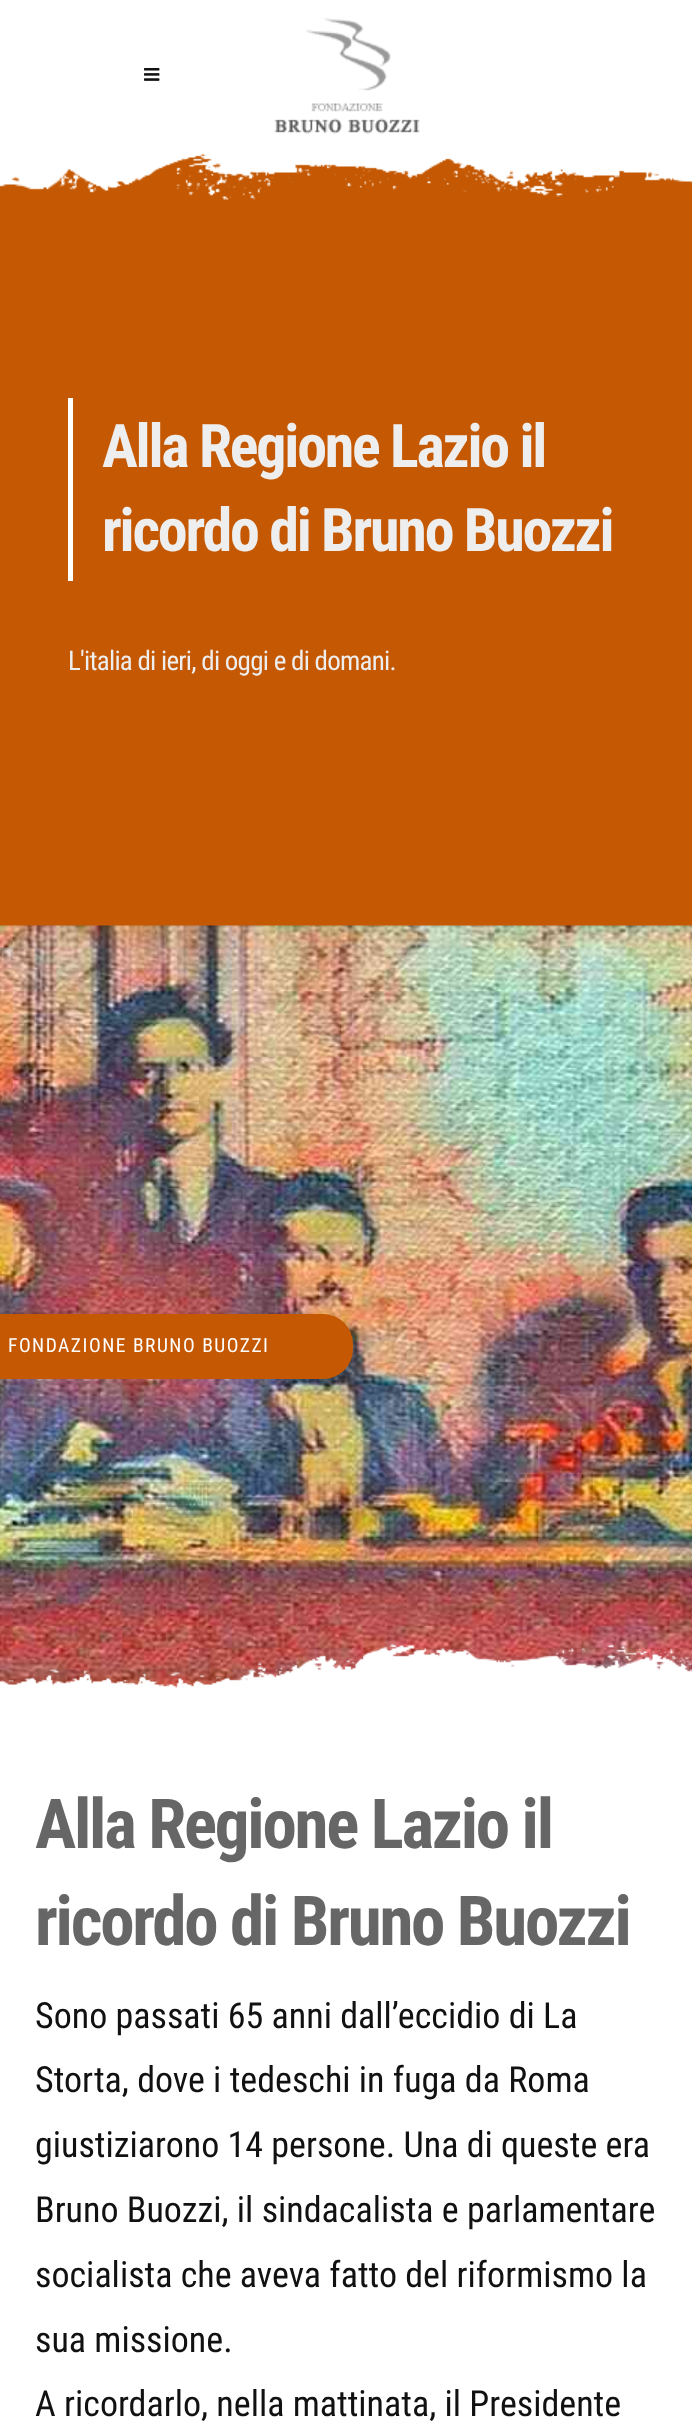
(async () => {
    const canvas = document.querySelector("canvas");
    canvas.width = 692;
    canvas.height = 2430;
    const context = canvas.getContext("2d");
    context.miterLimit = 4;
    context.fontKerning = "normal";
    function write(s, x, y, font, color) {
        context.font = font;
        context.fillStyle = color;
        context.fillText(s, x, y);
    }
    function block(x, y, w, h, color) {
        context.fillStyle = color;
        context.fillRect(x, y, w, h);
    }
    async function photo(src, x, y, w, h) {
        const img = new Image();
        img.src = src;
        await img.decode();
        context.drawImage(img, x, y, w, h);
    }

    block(0, 0, 692, 2430, "rgb(255, 255, 255)");
    await photo("media/1.png", 144, 68, 16, 13);
    await photo("media/2.png", 274, 18, 146, 116);
    block(0, 154, 692, 772, "rgb(197, 88, 2)");
    await photo("media/3.png", 0, 150, 692, 50);
    block(68, 398, 5, 183, "rgb(255, 255, 255)");
    context.letterSpacing = "-2.25px";
    write("Alla Regione Lazio il", 102, 467, "bold 60px Roboto Condensed", "rgb(238, 238, 238)");
    write("ricordo di Bruno Buozzi", 102, 551, "bold 60px Roboto Condensed", "rgb(238, 238, 238)");
    context.letterSpacing = "-0.75px";
    write("L'italia di ieri, di oggi e di domani.", 68, 670, "27px Roboto Condensed", "rgb(238, 238, 238)");
    await photo("media/4.png", 0, 925, 692, 763);
    context.fillStyle = "rgb(197, 88, 2)";
    context.beginPath();
    context.roundRect(0, 1314, 353, 65, [0, 30, 30, 0]);
    context.fill();
    context.letterSpacing = "1.5px";
    write("FONDAZIONE BRUNO BUOZZI", 8, 1352, "19.5px Roboto Condensed", "rgb(255, 255, 255)");
    await photo("media/5.png", 0, 1643, 692, 58);
    context.letterSpacing = "-2.25px";
    write("Alla Regione Lazio il", 35, 1848, "bold 69px Roboto Condensed", "rgb(102, 102, 102)");
    write("ricordo di Bruno Buozzi", 35, 1945, "bold 69px Roboto Condensed", "rgb(102, 102, 102)");
    context.letterSpacing = "0px";
    write("Sono passati 65 anni dall’eccidio di La", 35, 2028, "36px Roboto Condensed", "rgb(17, 17, 17)");
    write("Storta, dove i tedeschi in fuga da Roma", 35, 2092, "36px Roboto Condensed", "rgb(17, 17, 17)");
    write("giustiziarono 14 persone. Una di queste era", 35, 2157, "36px Roboto Condensed", "rgb(17, 17, 17)");
    write("Bruno Buozzi, il sindacalista e parlamentare", 35, 2222, "36px Roboto Condensed", "rgb(17, 17, 17)");
    write("socialista che aveva fatto del riformismo la", 35, 2287, "36px Roboto Condensed", "rgb(17, 17, 17)");
    write("sua missione.", 35, 2352, "36px Roboto Condensed", "rgb(17, 17, 17)");
    write("A ricordarlo, nella mattinata, il Presidente", 35, 2416, "36px Roboto Condensed", "rgb(17, 17, 17)");
})();
